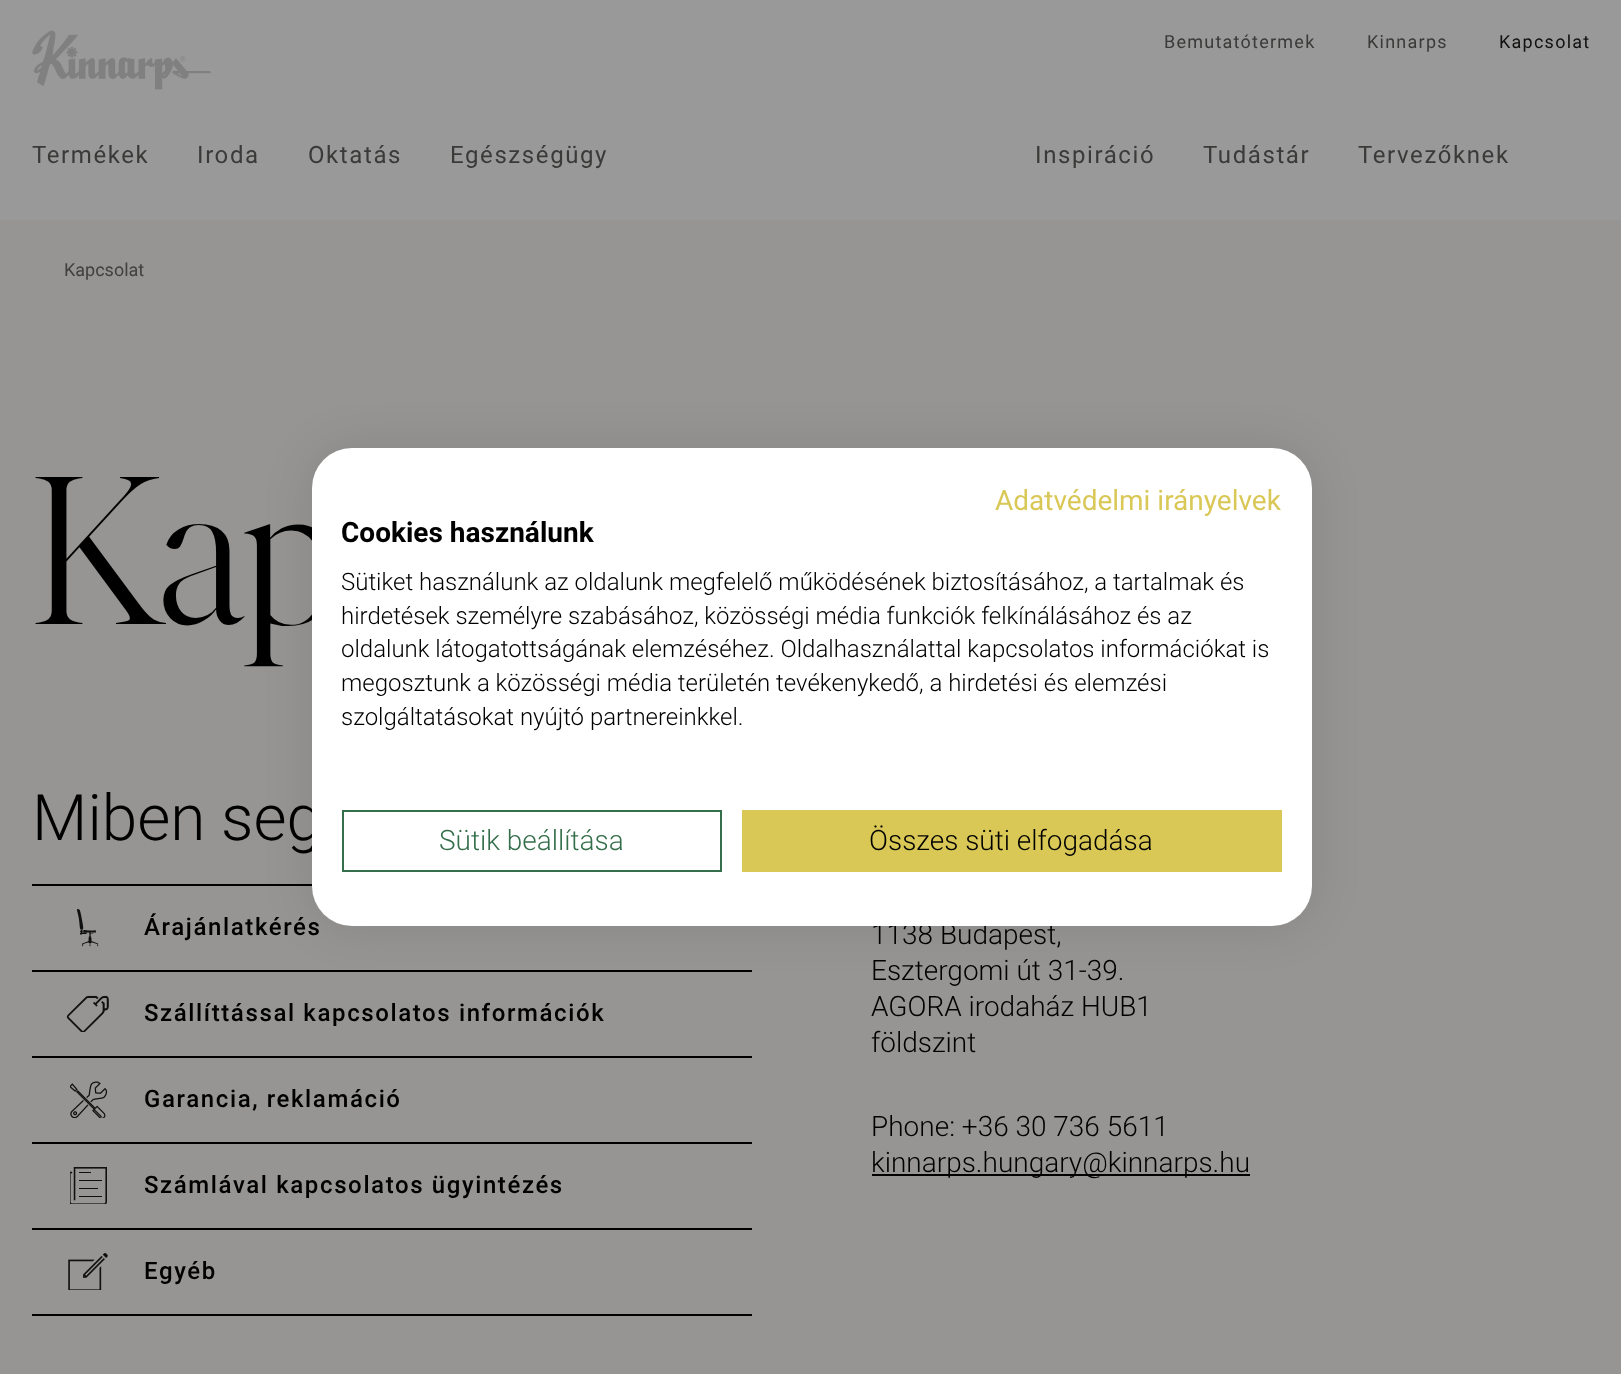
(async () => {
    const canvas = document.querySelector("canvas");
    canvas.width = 1621;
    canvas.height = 1374;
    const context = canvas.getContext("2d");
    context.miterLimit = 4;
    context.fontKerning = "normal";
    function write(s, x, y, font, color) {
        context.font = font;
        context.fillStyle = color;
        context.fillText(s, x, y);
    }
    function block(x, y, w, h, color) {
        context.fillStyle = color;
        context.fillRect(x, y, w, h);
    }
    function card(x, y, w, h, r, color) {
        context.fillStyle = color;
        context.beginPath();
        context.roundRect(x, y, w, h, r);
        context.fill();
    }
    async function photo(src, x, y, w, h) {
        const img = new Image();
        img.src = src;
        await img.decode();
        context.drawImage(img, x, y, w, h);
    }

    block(0, 0, 1621, 1374, "rgb(150, 149, 148)");
    block(0, 0, 1621, 220, "rgb(153, 153, 153)");
    await photo("media/1.png", 32, 30, 179, 60);
    context.letterSpacing = "1.25px";
    write("Bemutatótermek", 1164, 48, "18px Roboto", "rgb(58, 58, 57)");
    write("Kinnarps", 1367, 48, "18px Roboto", "rgb(58, 58, 57)");
    write("Kapcsolat", 1499, 48, "18px Roboto", "rgb(17, 17, 16)");
    context.letterSpacing = "1.6px";
    write("Termékek", 32, 163, "24px Roboto", "rgb(58, 58, 57)");
    write("Iroda", 197, 163, "24px Roboto", "rgb(58, 58, 57)");
    write("Oktatás", 308, 163, "24px Roboto", "rgb(58, 58, 57)");
    write("Egészségügy", 450, 163, "24px Roboto", "rgb(58, 58, 57)");
    write("Inspiráció", 1035, 163, "24px Roboto", "rgb(58, 58, 57)");
    write("Tudástár", 1203, 163, "24px Roboto", "rgb(58, 58, 57)");
    write("Tervezőknek", 1358, 163, "24px Roboto", "rgb(58, 58, 57)");
    context.letterSpacing = "0px";
    write("Kapcsolat", 64, 276, "18px Roboto", "rgb(66, 64, 62)");
    write("Kap", 32, 624, "300 210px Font", "rgb(0, 0, 0)");
    write("Miben seg", 32, 840, "300 64px Roboto", "rgb(0, 0, 0)");
    block(32, 884, 280, 2, "rgb(0, 0, 0)");
    block(32, 970, 720, 2, "rgb(0, 0, 0)");
    await photo("media/2.png", 77, 909, 22, 38);
    context.letterSpacing = "1.6px";
    write("Árajánlatkérés", 144, 935, "500 24px Roboto", "rgb(0, 0, 0)");
    block(32, 1056, 720, 2, "rgb(0, 0, 0)");
    await photo("media/3.png", 66, 995, 43, 37);
    write("Szállíttással kapcsolatos információk", 144, 1021, "500 24px Roboto", "rgb(0, 0, 0)");
    block(32, 1142, 720, 2, "rgb(0, 0, 0)");
    await photo("media/4.png", 70, 1081, 38, 37);
    write("Garancia, reklamáció", 144, 1107, "500 24px Roboto", "rgb(0, 0, 0)");
    block(32, 1228, 720, 2, "rgb(0, 0, 0)");
    await photo("media/5.png", 70, 1167, 37, 37);
    write("Számlával kapcsolatos ügyintézés", 144, 1193, "500 24px Roboto", "rgb(0, 0, 0)");
    block(32, 1314, 720, 2, "rgb(0, 0, 0)");
    await photo("media/6.png", 68, 1253, 40, 37);
    write("Egyéb", 144, 1279, "500 24px Roboto", "rgb(0, 0, 0)");
    context.letterSpacing = "0px";
    write("1138 Budapest,", 871, 944, "300 28px Roboto", "rgb(0, 0, 0)");
    write("Esztergomi út 31-39.", 871, 980, "300 28px Roboto", "rgb(0, 0, 0)");
    write("AGORA irodaház HUB1", 871, 1016, "300 28px Roboto", "rgb(0, 0, 0)");
    write("földszint", 871, 1052, "300 28px Roboto", "rgb(0, 0, 0)");
    write("Phone: +36 30 736 5611", 871, 1136, "300 28px Roboto", "rgb(0, 0, 0)");
    block(872, 1174, 378, 2, "rgb(0, 0, 0)");
    write("kinnarps.hungary@kinnarps.hu", 871, 1172, "300 28px Roboto", "rgb(0, 0, 0)");
    context.fillStyle = "rgba(0, 0, 0, 0.1)";
    context.filter = "blur(24px)";
    context.beginPath();
    context.roundRect(312, 448, 1000, 478, 40);
    context.fill();
    context.filter = "none";
    card(312, 448, 1000, 478, 40, "rgb(255, 255, 255)");
    write("Adatvédelmi irányelvek", 995, 510, "28px Roboto", "rgb(217, 199, 86)");
    write("Cookies használunk", 341, 542, "bold 28px Roboto", "rgb(0, 0, 0)");
    write("Sütiket használunk az oldalunk megfelelő működésének biztosításához, a tartalmak és", 341, 590, "300 24px Roboto", "rgb(0, 0, 0)");
    write("hirdetések személyre szabásához, közösségi média funkciók felkínálásához és az", 341, 624, "300 24px Roboto", "rgb(0, 0, 0)");
    write("oldalunk látogatottságának elemzéséhez. Oldalhasználattal kapcsolatos információkat is", 341, 657, "300 24px Roboto", "rgb(0, 0, 0)");
    write("megosztunk a közösségi média területén tevékenykedő, a hirdetési és elemzési", 341, 691, "300 24px Roboto", "rgb(0, 0, 0)");
    write("szolgáltatásokat nyújtó partnereinkkel.", 341, 725, "300 24px Roboto", "rgb(0, 0, 0)");
    context.strokeStyle = "rgb(52, 110, 74)";
    context.lineWidth = 2;
    context.strokeRect(343, 811, 378, 60);
    write("Sütik beállítása", 439, 850, "300 28px Roboto", "rgb(52, 110, 74)");
    block(742, 810, 540, 62, "rgb(217, 199, 86)");
    write("Összes süti elfogadása", 869, 850, "300 28px Roboto", "rgb(0, 0, 0)");
})();
